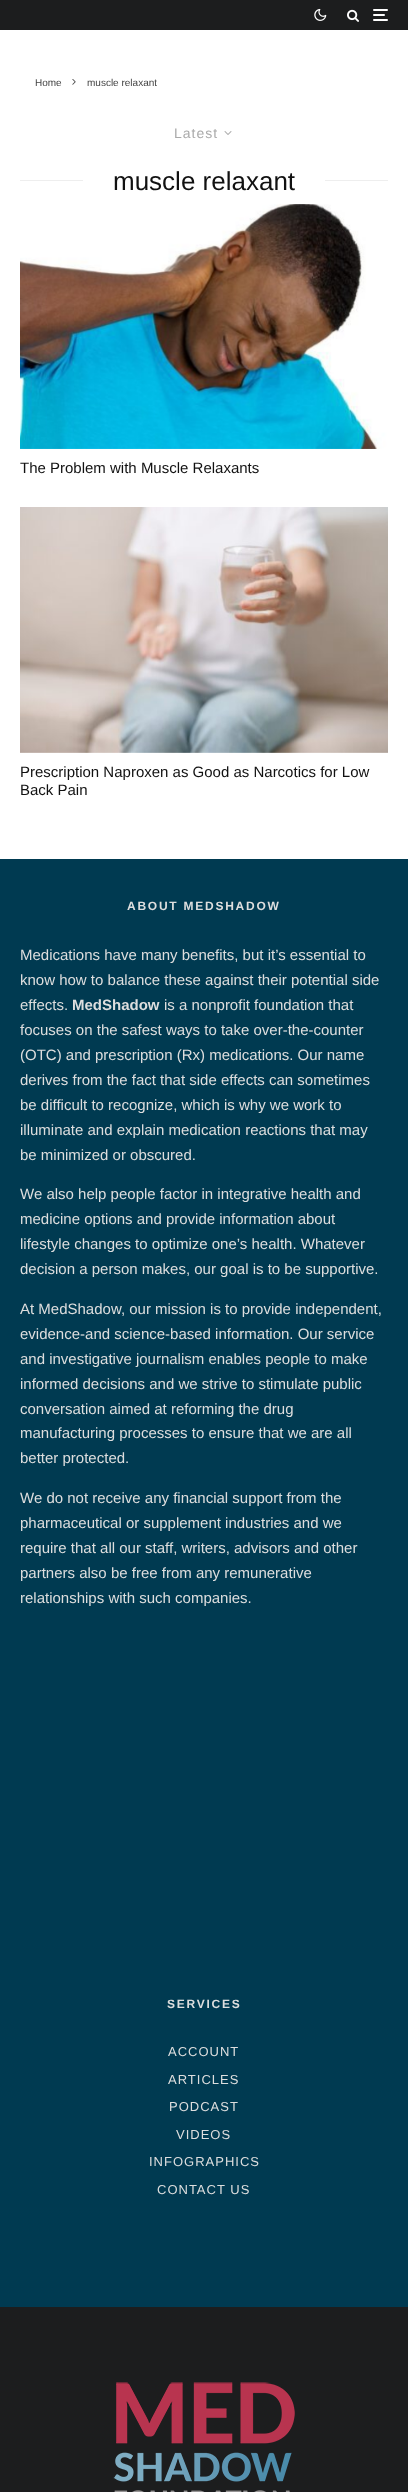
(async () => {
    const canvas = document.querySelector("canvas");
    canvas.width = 408;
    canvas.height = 2492;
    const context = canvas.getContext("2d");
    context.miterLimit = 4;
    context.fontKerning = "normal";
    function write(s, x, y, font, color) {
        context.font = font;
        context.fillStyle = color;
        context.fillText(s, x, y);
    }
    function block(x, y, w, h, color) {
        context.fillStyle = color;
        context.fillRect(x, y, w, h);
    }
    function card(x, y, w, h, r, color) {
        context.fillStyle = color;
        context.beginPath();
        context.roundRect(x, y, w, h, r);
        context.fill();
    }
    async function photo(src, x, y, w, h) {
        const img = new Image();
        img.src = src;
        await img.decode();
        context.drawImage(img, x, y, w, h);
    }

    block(0, 0, 408, 2492, "rgb(255, 255, 255)");
    block(0, 0, 408, 30, "rgb(28, 29, 30)");
    await photo("media/1.png", 314, 8, 13, 13);
    await photo("media/2.png", 347, 9, 12, 13);
    card(373, 14, 12, 2, 1, "rgb(255, 255, 255)");
    card(373, 9, 15, 2, 1, "rgb(255, 255, 255)");
    card(373, 19, 15, 2, 1, "rgb(255, 255, 255)");
    write("Home", 35, 86, "10px Liberation Sans", "rgb(68, 68, 68)");
    await photo("media/3.png", 72, 79, 4, 6);
    write("muscle relaxant", 87, 86, "10px Liberation Sans", "rgb(68, 68, 68)");
    context.letterSpacing = "1px";
    write("Latest", 174, 138, "14px Liberation Sans", "rgb(170, 170, 170)");
    await photo("media/4.png", 224, 131, 8, 4);
    block(20, 180, 63, 1, "rgb(238, 238, 238)");
    context.letterSpacing = "0px";
    write("muscle relaxant", 113, 190, "26px Liberation Sans", "rgb(17, 17, 17)");
    block(325, 180, 63, 1, "rgb(238, 238, 238)");
    await photo("media/5.png", 20, 204, 368, 245);
    write("The Problem with Muscle Relaxants", 20, 473, "15px Liberation Sans", "rgb(17, 17, 17)");
    await photo("media/6.png", 20, 507, 368, 246);
    write("Prescription Naproxen as Good as Narcotics for Low", 20, 777, "15px Liberation Sans", "rgb(17, 17, 17)");
    write("Back Pain", 20, 795, "15px Liberation Sans", "rgb(17, 17, 17)");
    block(0, 859, 408, 1448, "rgb(0, 58, 81)");
    context.letterSpacing = "1.75px";
    write("ABOUT MEDSHADOW", 127, 910, "bold 12px Liberation Sans", "rgb(221, 222, 222)");
    context.letterSpacing = "0px";
    write("Medications have many benefits, but it’s essential to", 20, 960, "15px Liberation Sans", "rgb(221, 222, 222)");
    write("know how to balance these against their potential side", 20, 985, "15px Liberation Sans", "rgb(221, 222, 222)");
    write("effects.", 20, 1010, "15px Liberation Sans", "rgb(221, 222, 222)");
    write("MedShadow", 72, 1010, "bold 15px Liberation Sans", "rgb(221, 222, 222)");
    write("is a nonprofit foundation that", 164, 1010, "15px Liberation Sans", "rgb(221, 222, 222)");
    write("focuses on the safest ways to take over-the-counter", 20, 1035, "15px Liberation Sans", "rgb(221, 222, 222)");
    write("(OTC) and prescription (Rx) medications. Our name", 20, 1060, "15px Liberation Sans", "rgb(221, 222, 222)");
    write("derives from the fact that side effects can sometimes", 20, 1085, "15px Liberation Sans", "rgb(221, 222, 222)");
    write("be difficult to recognize, which is why we work to", 20, 1110, "15px Liberation Sans", "rgb(221, 222, 222)");
    write("illuminate and explain medication reactions that may", 20, 1135, "15px Liberation Sans", "rgb(221, 222, 222)");
    write("be minimized or obscured.", 20, 1160, "15px Liberation Sans", "rgb(221, 222, 222)");
    write("We also help people factor in integrative health and", 20, 1199, "15px Liberation Sans", "rgb(221, 222, 222)");
    write("medicine options and provide information about", 20, 1224, "15px Liberation Sans", "rgb(221, 222, 222)");
    write("lifestyle changes to optimize one’s health. Whatever", 20, 1249, "15px Liberation Sans", "rgb(221, 222, 222)");
    write("decision a person makes, our goal is to be supportive.", 20, 1274, "15px Liberation Sans", "rgb(221, 222, 222)");
    write("At MedShadow, our mission is to provide independent,", 20, 1314, "15px Liberation Sans", "rgb(221, 222, 222)");
    write("evidence-and science-based information. Our service", 20, 1339, "15px Liberation Sans", "rgb(221, 222, 222)");
    write("and investigative journalism enables people to make", 20, 1364, "15px Liberation Sans", "rgb(221, 222, 222)");
    write("informed decisions and we strive to stimulate public", 20, 1389, "15px Liberation Sans", "rgb(221, 222, 222)");
    write("conversation aimed at reforming the drug", 20, 1414, "15px Liberation Sans", "rgb(221, 222, 222)");
    write("manufacturing processes to ensure that we are all", 20, 1438, "15px Liberation Sans", "rgb(221, 222, 222)");
    write("better protected.", 20, 1463, "15px Liberation Sans", "rgb(221, 222, 222)");
    write("We do not receive any financial support from the", 20, 1503, "15px Liberation Sans", "rgb(221, 222, 222)");
    write("pharmaceutical or supplement industries and we", 20, 1528, "15px Liberation Sans", "rgb(221, 222, 222)");
    write("require that all our staff, writers, advisors and other", 20, 1553, "15px Liberation Sans", "rgb(221, 222, 222)");
    write("partners also be free from any remunerative", 20, 1578, "15px Liberation Sans", "rgb(221, 222, 222)");
    write("relationships with such companies.", 20, 1603, "15px Liberation Sans", "rgb(221, 222, 222)");
    context.letterSpacing = "1.75px";
    write("SERVICES", 167, 2008, "bold 12px Liberation Sans", "rgb(221, 222, 222)");
    context.letterSpacing = "1px";
    write("ACCOUNT", 168, 2056, "13px Liberation Sans", "rgb(221, 222, 222)");
    write("ARTICLES", 168, 2084, "13px Liberation Sans", "rgb(221, 222, 222)");
    write("PODCAST", 169, 2111, "13px Liberation Sans", "rgb(221, 222, 222)");
    write("VIDEOS", 176, 2139, "13px Liberation Sans", "rgb(221, 222, 222)");
    write("INFOGRAPHICS", 149, 2166, "13px Liberation Sans", "rgb(221, 222, 222)");
    write("CONTACT US", 157, 2194, "13px Liberation Sans", "rgb(221, 222, 222)");
    block(0, 2307, 408, 185, "rgb(28, 29, 30)");
    await photo("media/7.png", 113, 2382, 182, 110);
})();
